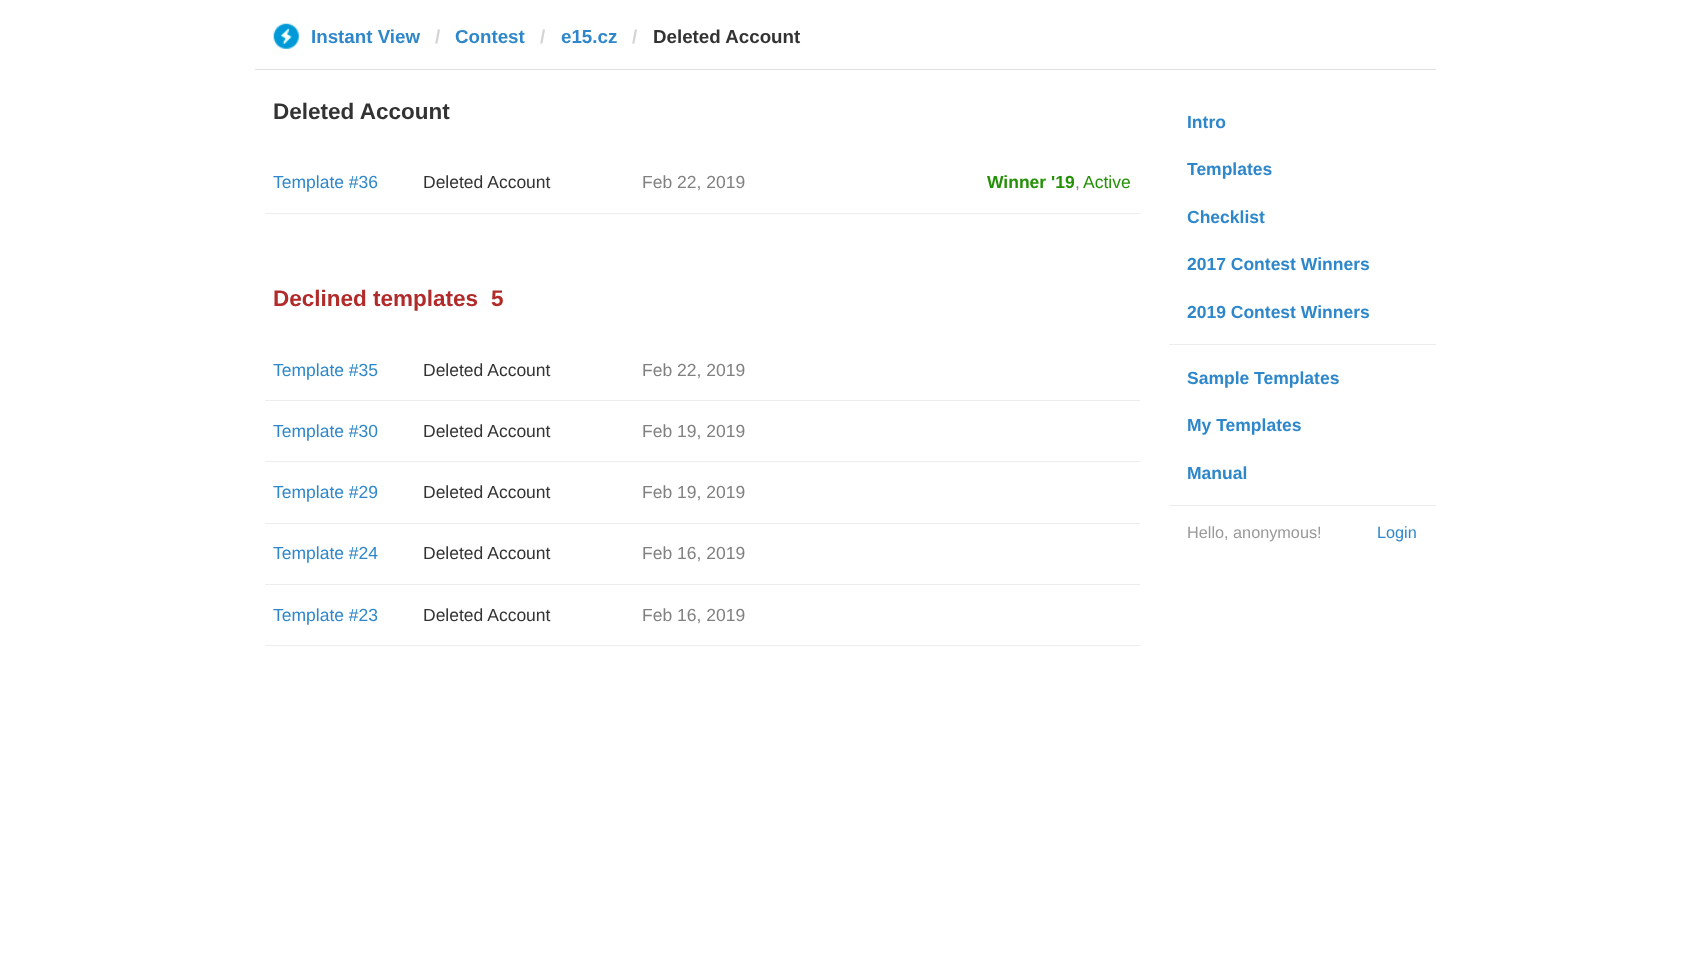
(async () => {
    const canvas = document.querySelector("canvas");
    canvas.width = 1690;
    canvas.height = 959;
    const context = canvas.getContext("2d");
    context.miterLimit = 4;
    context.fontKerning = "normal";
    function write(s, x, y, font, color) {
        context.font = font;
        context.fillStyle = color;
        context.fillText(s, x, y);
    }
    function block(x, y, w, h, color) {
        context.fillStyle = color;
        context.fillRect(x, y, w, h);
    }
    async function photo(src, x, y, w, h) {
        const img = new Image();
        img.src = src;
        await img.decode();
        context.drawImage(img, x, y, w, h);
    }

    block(0, 0, 1690, 959, "rgb(255, 255, 255)");
    block(255, 69, 1181, 1, "rgb(224, 224, 224)");
    await photo("media/1.png", 273, 23, 26, 26);
    write("Instant View", 311, 43, "bold 18.75px Liberation Sans", "rgb(46, 135, 202)");
    write("/", 435, 43, "bold 18.75px Liberation Sans", "rgb(212, 212, 212)");
    write("Contest", 455, 43, "bold 18.75px Liberation Sans", "rgb(46, 135, 202)");
    write("/", 540, 43, "bold 18.75px Liberation Sans", "rgb(212, 212, 212)");
    write("e15.cz", 561, 43, "bold 18.75px Liberation Sans", "rgb(46, 135, 202)");
    write("/", 632, 43, "bold 18.75px Liberation Sans", "rgb(212, 212, 212)");
    write("Deleted Account", 653, 43, "bold 18.75px Liberation Sans", "rgb(51, 51, 51)");
    write("Deleted Account", 273, 119, "bold 22.5px Liberation Sans", "rgb(51, 51, 51)");
    block(265, 213, 875, 1, "rgb(237, 237, 237)");
    write("Template #36", 273, 188, "17.5px Liberation Sans", "rgb(46, 135, 202)");
    write("Deleted Account", 423, 188, "17.5px Liberation Sans", "rgb(51, 51, 51)");
    write("Feb 22, 2019", 642, 188, "17.5px Liberation Sans", "rgb(128, 128, 128)");
    write("Winner '19", 987, 188, "bold 17.5px Liberation Sans", "rgb(36, 145, 6)");
    write(",", 1075, 188, "17.5px Liberation Sans", "rgb(128, 128, 128)");
    write("Active", 1083, 188, "17.5px Liberation Sans", "rgb(36, 145, 6)");
    write("Declined templates", 273, 306, "bold 22.5px Liberation Sans", "rgb(177, 43, 43)");
    write("5", 491, 306, "bold 22.5px Liberation Sans", "rgb(177, 43, 43)");
    block(265, 400, 875, 1, "rgb(237, 237, 237)");
    write("Template #35", 273, 376, "17.5px Liberation Sans", "rgb(46, 135, 202)");
    write("Deleted Account", 423, 376, "17.5px Liberation Sans", "rgb(51, 51, 51)");
    write("Feb 22, 2019", 642, 376, "17.5px Liberation Sans", "rgb(128, 128, 128)");
    block(265, 461, 875, 1, "rgb(237, 237, 237)");
    write("Template #30", 273, 437, "17.5px Liberation Sans", "rgb(46, 135, 202)");
    write("Deleted Account", 423, 437, "17.5px Liberation Sans", "rgb(51, 51, 51)");
    write("Feb 19, 2019", 642, 437, "17.5px Liberation Sans", "rgb(128, 128, 128)");
    block(265, 523, 875, 1, "rgb(237, 237, 237)");
    write("Template #29", 273, 498, "17.5px Liberation Sans", "rgb(46, 135, 202)");
    write("Deleted Account", 423, 498, "17.5px Liberation Sans", "rgb(51, 51, 51)");
    write("Feb 19, 2019", 642, 498, "17.5px Liberation Sans", "rgb(128, 128, 128)");
    block(265, 584, 875, 1, "rgb(237, 237, 237)");
    write("Template #24", 273, 559, "17.5px Liberation Sans", "rgb(46, 135, 202)");
    write("Deleted Account", 423, 559, "17.5px Liberation Sans", "rgb(51, 51, 51)");
    write("Feb 16, 2019", 642, 559, "17.5px Liberation Sans", "rgb(128, 128, 128)");
    block(265, 645, 875, 1, "rgb(237, 237, 237)");
    write("Template #23", 273, 621, "17.5px Liberation Sans", "rgb(46, 135, 202)");
    write("Deleted Account", 423, 621, "17.5px Liberation Sans", "rgb(51, 51, 51)");
    write("Feb 16, 2019", 642, 621, "17.5px Liberation Sans", "rgb(128, 128, 128)");
    write("Intro", 1187, 128, "bold 17.5px Liberation Sans", "rgb(46, 135, 202)");
    write("Templates", 1187, 175, "bold 17.5px Liberation Sans", "rgb(46, 135, 202)");
    write("Checklist", 1187, 223, "bold 17.5px Liberation Sans", "rgb(46, 135, 202)");
    write("2017 Contest Winners", 1187, 270, "bold 17.5px Liberation Sans", "rgb(46, 135, 202)");
    write("2019 Contest Winners", 1187, 318, "bold 17.5px Liberation Sans", "rgb(46, 135, 202)");
    block(1169, 344, 267, 1, "rgb(237, 237, 237)");
    write("Sample Templates", 1187, 384, "bold 17.5px Liberation Sans", "rgb(46, 135, 202)");
    write("My Templates", 1187, 431, "bold 17.5px Liberation Sans", "rgb(46, 135, 202)");
    write("Manual", 1187, 479, "bold 17.5px Liberation Sans", "rgb(46, 135, 202)");
    block(1169, 505, 267, 1, "rgb(237, 237, 237)");
    write("Hello, anonymous!", 1187, 538, "16.25px Liberation Sans", "rgb(153, 153, 153)");
    write("Login", 1377, 538, "16.25px Liberation Sans", "rgb(46, 135, 202)");
})();
